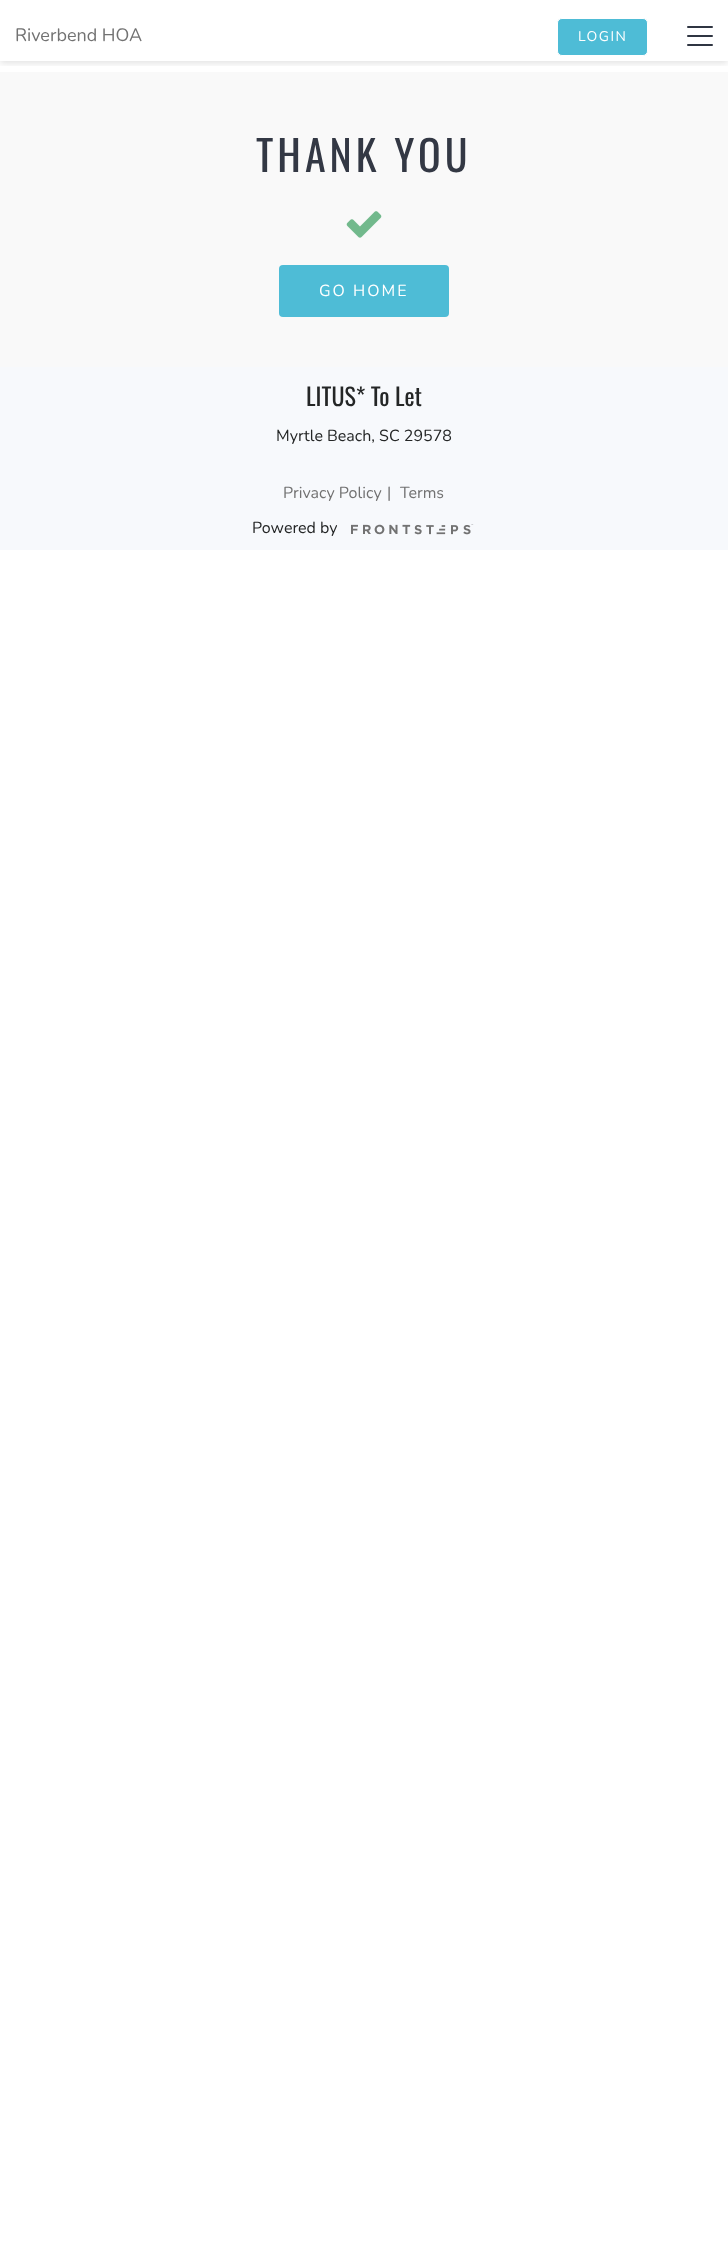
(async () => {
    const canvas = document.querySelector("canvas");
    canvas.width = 728;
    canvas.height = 2256;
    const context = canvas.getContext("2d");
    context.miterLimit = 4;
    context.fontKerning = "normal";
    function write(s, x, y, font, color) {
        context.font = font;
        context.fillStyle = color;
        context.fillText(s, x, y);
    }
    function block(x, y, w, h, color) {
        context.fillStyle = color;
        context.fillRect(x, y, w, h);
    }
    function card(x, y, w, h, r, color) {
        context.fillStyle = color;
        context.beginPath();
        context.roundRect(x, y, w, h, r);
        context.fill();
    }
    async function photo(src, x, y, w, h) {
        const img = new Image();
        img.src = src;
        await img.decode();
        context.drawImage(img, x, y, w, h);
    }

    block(0, 0, 728, 2256, "rgb(255, 255, 255)");
    block(0, 72, 728, 295, "rgb(249, 249, 249)");
    context.save();
    context.beginPath();
    context.rect(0, 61, 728, 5);
    context.clip();
    context.fillStyle = "rgba(0, 0, 0, 0.12)";
    context.filter = "blur(3.5px)";
    context.beginPath();
    context.rect(0, 2, 728, 61);
    context.fill();
    context.filter = "none";
    context.restore();
    write("Riverbend HOA", 15, 41, "18px Nunito", "rgb(114, 114, 114)");
    card(687, 26, 26, 2, 1, "rgb(47, 53, 66)");
    card(687, 35, 26, 2, 1, "rgb(47, 53, 66)");
    card(687, 44, 26, 2, 1, "rgb(47, 53, 66)");
    context.fillStyle = "rgb(78, 188, 214)";
    context.beginPath();
    context.roundRect(557.5, 18.5, 90, 37, 4.5);
    context.fill();
    context.strokeStyle = "rgb(255, 255, 255)";
    context.stroke();
    context.letterSpacing = "1.5px";
    write("LOGIN", 578, 41, "14px Nunito", "rgb(255, 255, 255)");
    context.letterSpacing = "4px";
    write("THANK YOU", 256, 172, "42px Oswald", "rgb(51, 56, 68)");
    await photo("media/1.png", 346, 211, 36, 27);
    card(279, 265, 170, 52, 4, "rgb(78, 188, 214)");
    context.letterSpacing = "2px";
    write("GO HOME", 319, 296, "16px Nunito", "rgb(255, 255, 255)");
    block(0, 367, 728, 183, "rgb(247, 249, 252)");
    context.letterSpacing = "0px";
    write("LITUS* To Let", 306, 406, "24px Oswald", "rgb(36, 38, 38)");
    write("Myrtle Beach, SC 29578", 276, 441, "16px Nunito", "rgb(36, 38, 38)");
    write("Privacy Policy", 283, 498, "16px Nunito", "rgb(114, 114, 114)");
    write("|", 387, 498, "16px Nunito", "rgb(114, 114, 114)");
    write("Terms", 400, 498, "16px Nunito", "rgb(114, 114, 114)");
    write("Powered by", 252, 533, "16px Nunito", "rgb(36, 38, 38)");
    await photo("media/2.png", 351, 524, 123, 11);
})();
